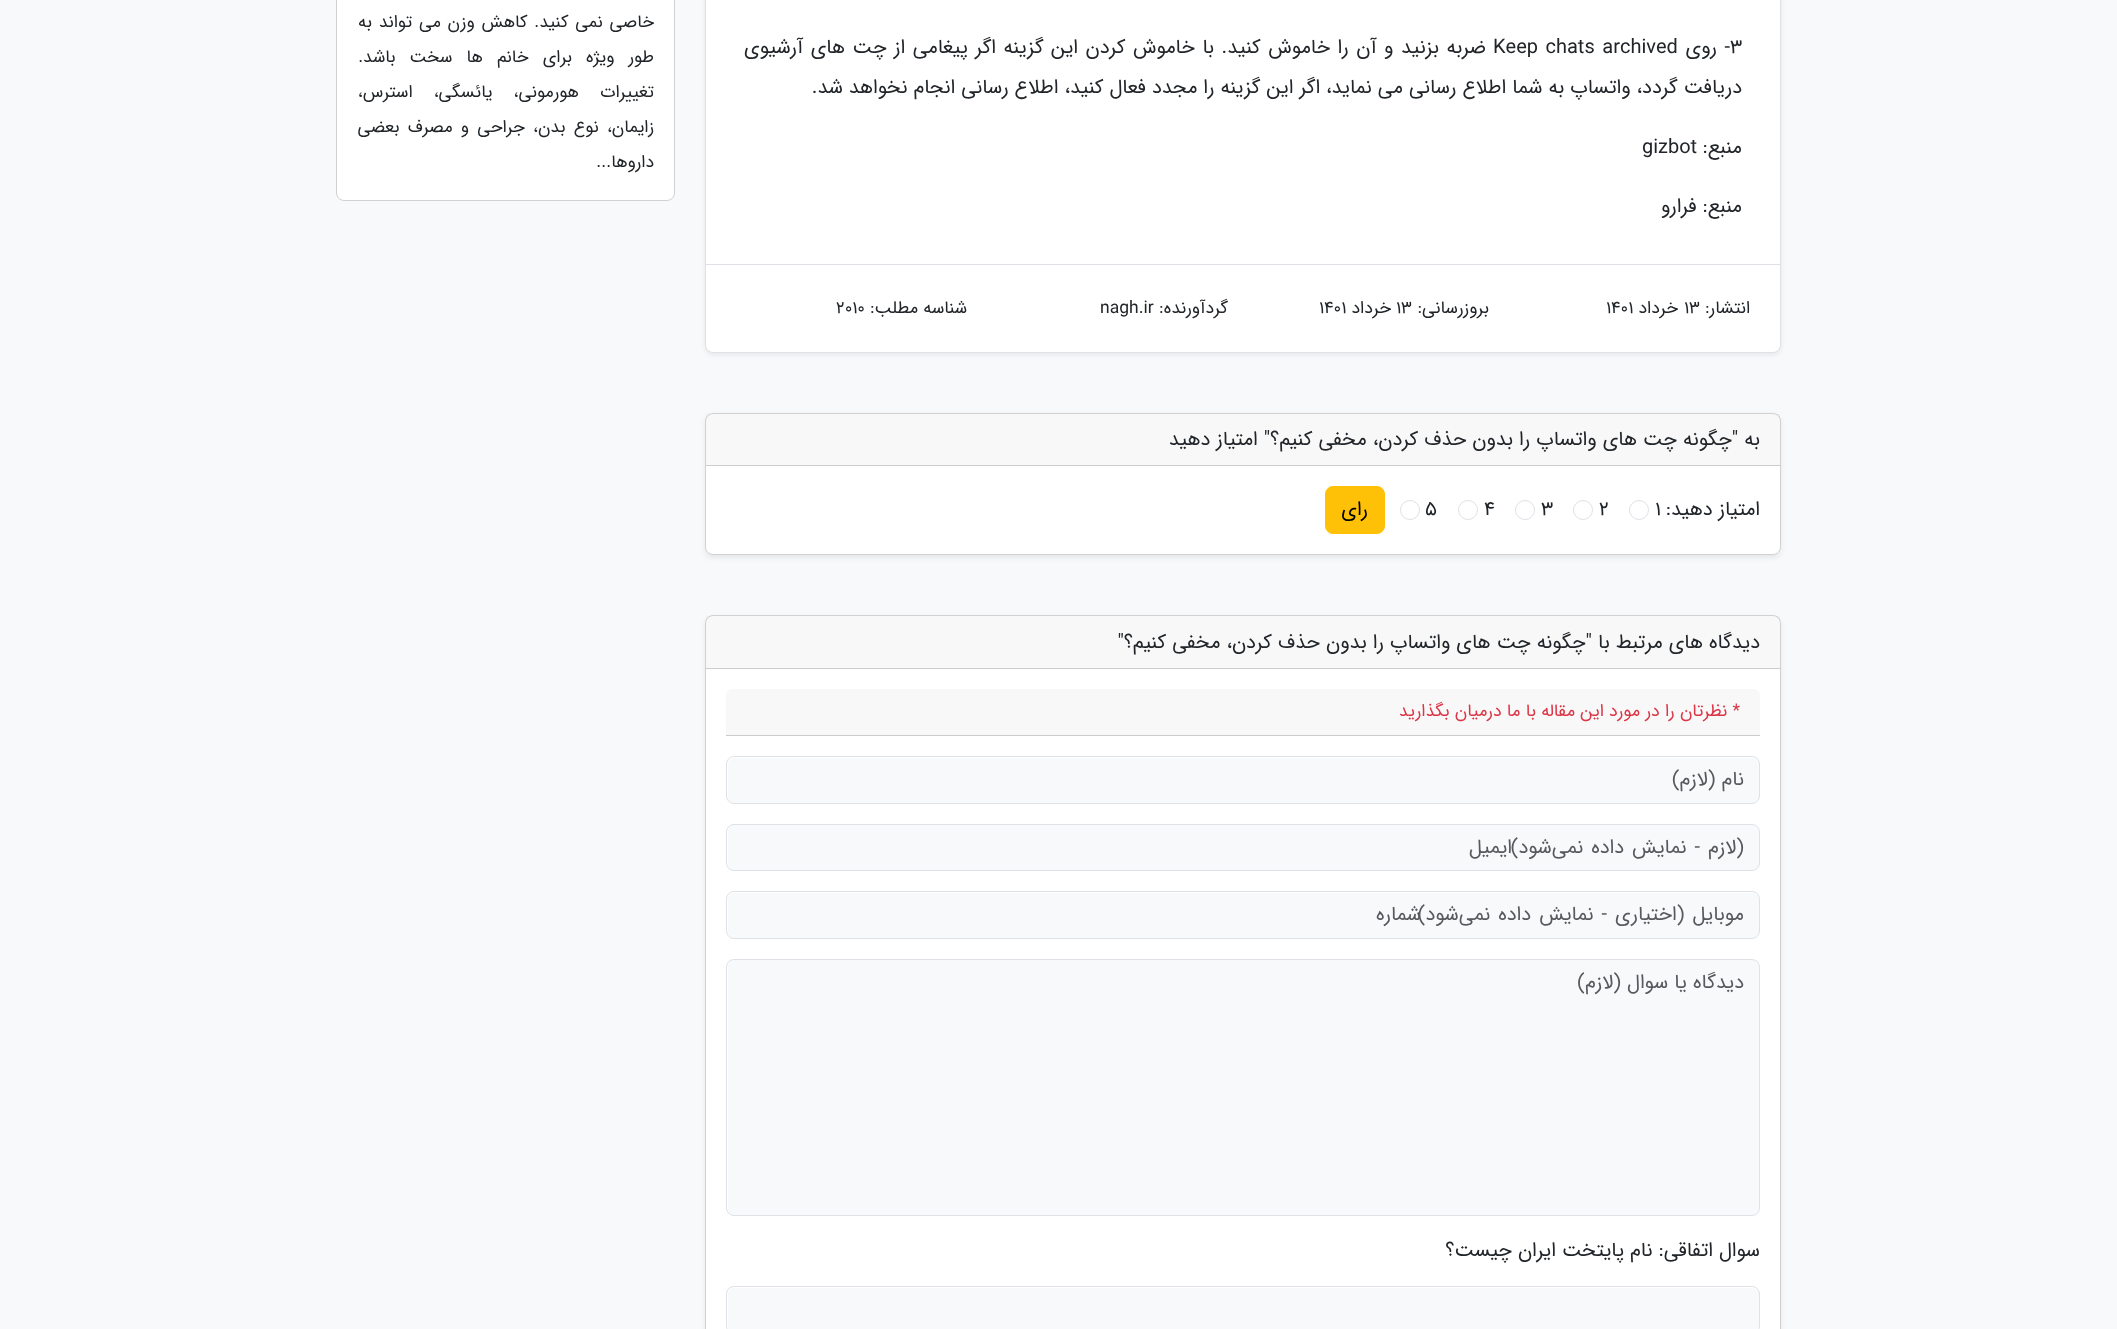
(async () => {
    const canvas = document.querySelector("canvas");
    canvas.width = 2117;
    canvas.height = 1329;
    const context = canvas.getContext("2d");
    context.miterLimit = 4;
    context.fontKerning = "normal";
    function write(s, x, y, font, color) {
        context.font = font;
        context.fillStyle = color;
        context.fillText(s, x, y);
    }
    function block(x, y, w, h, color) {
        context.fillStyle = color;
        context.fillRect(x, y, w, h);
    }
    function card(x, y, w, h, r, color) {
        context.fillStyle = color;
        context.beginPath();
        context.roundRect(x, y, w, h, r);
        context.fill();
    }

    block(0, 0, 2117, 1329, "rgb(248, 249, 250)");
    context.fillStyle = "rgba(0, 0, 0, 0.07)";
    context.filter = "blur(2.5px)";
    context.beginPath();
    context.roundRect(705, -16, 1076, 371, 8);
    context.fill();
    context.filter = "none";
    context.fillStyle = "rgb(255, 255, 255)";
    context.beginPath();
    context.roundRect(705.5, -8.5, 1075, 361, 7.5);
    context.fill();
    context.strokeStyle = "rgb(222, 226, 230)";
    context.stroke();
    write("3", 1730, 53, "20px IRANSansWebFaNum", "rgb(33, 37, 41)");
    context.wordSpacing = "1.5px";
    context.direction = "rtl";
    write("- روی", 1730, 53, "20px IRANSansWebFaNum", "rgb(33, 37, 41)");
    context.direction = "ltr";
    write("Keep chats archived", 1493, 53, "20px IRANSansWebFaNum", "rgb(33, 37, 41)");
    context.direction = "rtl";
    write("ضربه بزنید و آن را خاموش کنید. با خاموش کردن این گزینه اگر پیغامی از چت های آرشیوی", 1486, 53, "20px IRANSansWebFaNum", "rgb(33, 37, 41)");
    context.wordSpacing = "0px";
    write("دریافت گردد، واتساپ به شما اطلاع رسانی می نماید، اگر این گزینه را مجدد فعال کنید، اطلاع رسانی انجام نخواهد شد.", 1742, 93, "20px IRANSansWebFaNum", "rgb(33, 37, 41)");
    write("منبع:", 1742, 153, "20px IRANSansWebFaNum", "rgb(33, 37, 41)");
    context.direction = "ltr";
    write("gizbot", 1642, 153, "20px IRANSansWebFaNum", "rgb(33, 37, 41)");
    context.direction = "rtl";
    write("منبع: فرارو", 1742, 212, "20px IRANSansWebFaNum", "rgb(33, 37, 41)");
    block(706, 264, 1074, 1, "rgb(222, 226, 230)");
    write("انتشار:", 1750, 313, "17.5px IRANSansWebFaNum", "rgb(33, 37, 41)");
    context.direction = "ltr";
    write("13", 1684, 313, "17.5px IRANSansWebFaNum", "rgb(33, 37, 41)");
    context.direction = "rtl";
    write("خرداد", 1678, 313, "17.5px IRANSansWebFaNum", "rgb(33, 37, 41)");
    context.direction = "ltr";
    write("1401", 1606, 313, "17.5px IRANSansWebFaNum", "rgb(33, 37, 41)");
    context.direction = "rtl";
    write("بروزرسانی:", 1489, 313, "17.5px IRANSansWebFaNum", "rgb(33, 37, 41)");
    context.direction = "ltr";
    write("13", 1396, 313, "17.5px IRANSansWebFaNum", "rgb(33, 37, 41)");
    context.direction = "rtl";
    write("خرداد", 1391, 313, "17.5px IRANSansWebFaNum", "rgb(33, 37, 41)");
    context.direction = "ltr";
    write("1401", 1319, 313, "17.5px IRANSansWebFaNum", "rgb(33, 37, 41)");
    context.direction = "rtl";
    write("گردآورنده:", 1228, 313, "17.5px IRANSansWebFaNum", "rgb(33, 37, 41)");
    context.direction = "ltr";
    write("nagh.ir", 1100, 313, "17.5px IRANSansWebFaNum", "rgb(33, 37, 41)");
    context.direction = "rtl";
    write("شناسه مطلب:", 967, 313, "17.5px IRANSansWebFaNum", "rgb(33, 37, 41)");
    context.direction = "ltr";
    write("2010", 836, 313, "17.5px IRANSansWebFaNum", "rgb(33, 37, 41)");
    context.fillStyle = "rgba(0, 0, 0, 0.07)";
    context.filter = "blur(2.5px)";
    context.beginPath();
    context.roundRect(705, 415, 1076, 143, 8);
    context.fill();
    context.filter = "none";
    card(705, 413, 1076, 142, 8, "rgb(255, 255, 255)");
    context.beginPath();
    context.roundRect(705.5, 413.5, 1075, 141, 7.5);
    context.strokeStyle = "rgba(0, 0, 0, 0.18)";
    context.stroke();
    block(706, 414, 1074, 51, "rgba(33, 37, 41, 0.03)");
    block(706, 465, 1074, 1, "rgb(205, 205, 205)");
    context.direction = "rtl";
    write("به \"چگونه چت های واتساپ را بدون حذف کردن، مخفی کنیم؟\" امتیاز دهید", 1760, 445, "20px IRANSansWebFaNum", "rgb(33, 37, 41)");
    write("امتیاز دهید:", 1760, 515, "20px IRANSansWebFaNum", "rgb(33, 37, 41)");
    context.direction = "ltr";
    write("1", 1655, 515, "20px IRANSansWebFaNum", "rgb(33, 37, 41)");
    context.beginPath();
    context.arc(1639, 510, 9.5, 0, Math.PI * 2);
    context.strokeStyle = "rgb(222, 226, 230)";
    context.stroke();
    write("2", 1599, 515, "20px IRANSansWebFaNum", "rgb(33, 37, 41)");
    context.beginPath();
    context.arc(1583, 510, 9.5, 0, Math.PI * 2);
    context.stroke();
    write("3", 1541, 515, "20px IRANSansWebFaNum", "rgb(33, 37, 41)");
    context.beginPath();
    context.arc(1525, 510, 9.5, 0, Math.PI * 2);
    context.stroke();
    write("4", 1484, 515, "20px IRANSansWebFaNum", "rgb(33, 37, 41)");
    context.beginPath();
    context.arc(1468, 510, 9.5, 0, Math.PI * 2);
    context.stroke();
    write("5", 1425, 515, "20px IRANSansWebFaNum", "rgb(33, 37, 41)");
    context.beginPath();
    context.arc(1410, 510, 9.5, 0, Math.PI * 2);
    context.stroke();
    context.fillStyle = "rgb(255, 193, 7)";
    context.beginPath();
    context.roundRect(1325.5, 486.5, 59, 47, 7.5);
    context.fill();
    context.strokeStyle = "rgb(255, 193, 7)";
    context.stroke();
    context.direction = "rtl";
    write("رای", 1368, 515, "20px IRANSansWebFaNum", "rgb(0, 0, 0)");
    context.fillStyle = "rgba(0, 0, 0, 0.07)";
    context.filter = "blur(2.5px)";
    context.beginPath();
    context.roundRect(705, 618, 1076, 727, 8);
    context.fill();
    context.filter = "none";
    card(705, 615, 1076, 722, 8, "rgb(255, 255, 255)");
    context.beginPath();
    context.roundRect(705.5, 615.5, 1075, 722, 7.5);
    context.strokeStyle = "rgba(0, 0, 0, 0.18)";
    context.stroke();
    block(706, 616, 1074, 52, "rgba(33, 37, 41, 0.03)");
    block(706, 668, 1074, 1, "rgb(205, 205, 205)");
    write("دیدگاه های مرتبط با \"چگونه چت های واتساپ را بدون حذف کردن، مخفی کنیم؟\"", 1760, 648, "20px IRANSansWebFaNum", "rgb(33, 37, 41)");
    context.fillStyle = "rgb(248, 248, 249)";
    context.beginPath();
    context.roundRect(726, 689, 1034, 47, [6, 6, 0, 0]);
    context.fill();
    block(726, 735, 1034, 1, "rgb(204, 204, 205)");
    write("* نظرتان را در مورد این مقاله با ما درمیان بگذارید", 1740, 716, "17.5px IRANSansWebFaNum", "rgb(220, 53, 69)");
    card(728, 758, 1031, 45, 6, "rgb(248, 249, 250)");
    context.beginPath();
    context.roundRect(726.5, 756.5, 1033, 47, 7.5);
    context.strokeStyle = "rgb(222, 226, 230)";
    context.stroke();
    write("نام (لازم)", 1744, 785, "20px IRANSansWebFaNum", "rgb(87, 90, 93)");
    card(728, 825, 1031, 45, 6, "rgb(248, 249, 250)");
    context.beginPath();
    context.roundRect(726.5, 824.5, 1033, 46, 7.5);
    context.stroke();
    write("ایمیل", 1512, 853, "20px IRANSansWebFaNum", "rgb(87, 90, 93)");
    context.wordSpacing = "2px";
    write("(لازم - نمایش داده نمی‌شود)", 1744, 853, "20px IRANSansWebFaNum", "rgb(87, 90, 93)");
    card(728, 893, 1031, 45, 6, "rgb(248, 249, 250)");
    context.beginPath();
    context.roundRect(726.5, 891.5, 1033, 47, 7.5);
    context.stroke();
    context.wordSpacing = "0px";
    write("شماره", 1421, 920, "20px IRANSansWebFaNum", "rgb(87, 90, 93)");
    context.wordSpacing = "2px";
    write("موبایل (اختیاری - نمایش داده نمی‌شود)", 1744, 920, "20px IRANSansWebFaNum", "rgb(87, 90, 93)");
    card(728, 960, 1031, 255, 6, "rgb(248, 249, 250)");
    context.beginPath();
    context.roundRect(726.5, 959.5, 1033, 256, 7.5);
    context.stroke();
    context.wordSpacing = "0px";
    write("دیدگاه یا سوال (لازم)", 1744, 988, "20px IRANSansWebFaNum", "rgb(87, 90, 93)");
    write("سوال اتفاقی: نام پایتخت ایران چیست؟", 1760, 1256, "20px IRANSansWebFaNum", "rgb(33, 37, 41)");
    card(728, 1288, 1031, 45, 6, "rgb(248, 249, 250)");
    context.beginPath();
    context.roundRect(726.5, 1286.5, 1033, 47, 7.5);
    context.stroke();
    card(336, -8, 339, 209, 8, "rgb(255, 255, 255)");
    context.beginPath();
    context.roundRect(336.5, -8.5, 338, 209, 7.5);
    context.strokeStyle = "rgba(0, 0, 0, 0.18)";
    context.stroke();
    context.wordSpacing = "1.5px";
    write("خاصی نمی کنید. کاهش وزن می تواند به", 654, 27, "17.5px IRANSansWebFaNum", "rgb(33, 37, 41)");
    context.wordSpacing = "8.75px";
    write("طور ویژه برای خانم ها سخت باشد.", 654, 62, "17.5px IRANSansWebFaNum", "rgb(33, 37, 41)");
    context.wordSpacing = "16px";
    write("تغییرات هورمونی، یائسگی، استرس،", 654, 97, "17.5px IRANSansWebFaNum", "rgb(33, 37, 41)");
    context.wordSpacing = "3px";
    write("زایمان، نوع بدن، جراحی و مصرف بعضی", 654, 132, "17.5px IRANSansWebFaNum", "rgb(33, 37, 41)");
    context.wordSpacing = "0px";
    write("داروها...", 654, 167, "17.5px IRANSansWebFaNum", "rgb(33, 37, 41)");
})();
